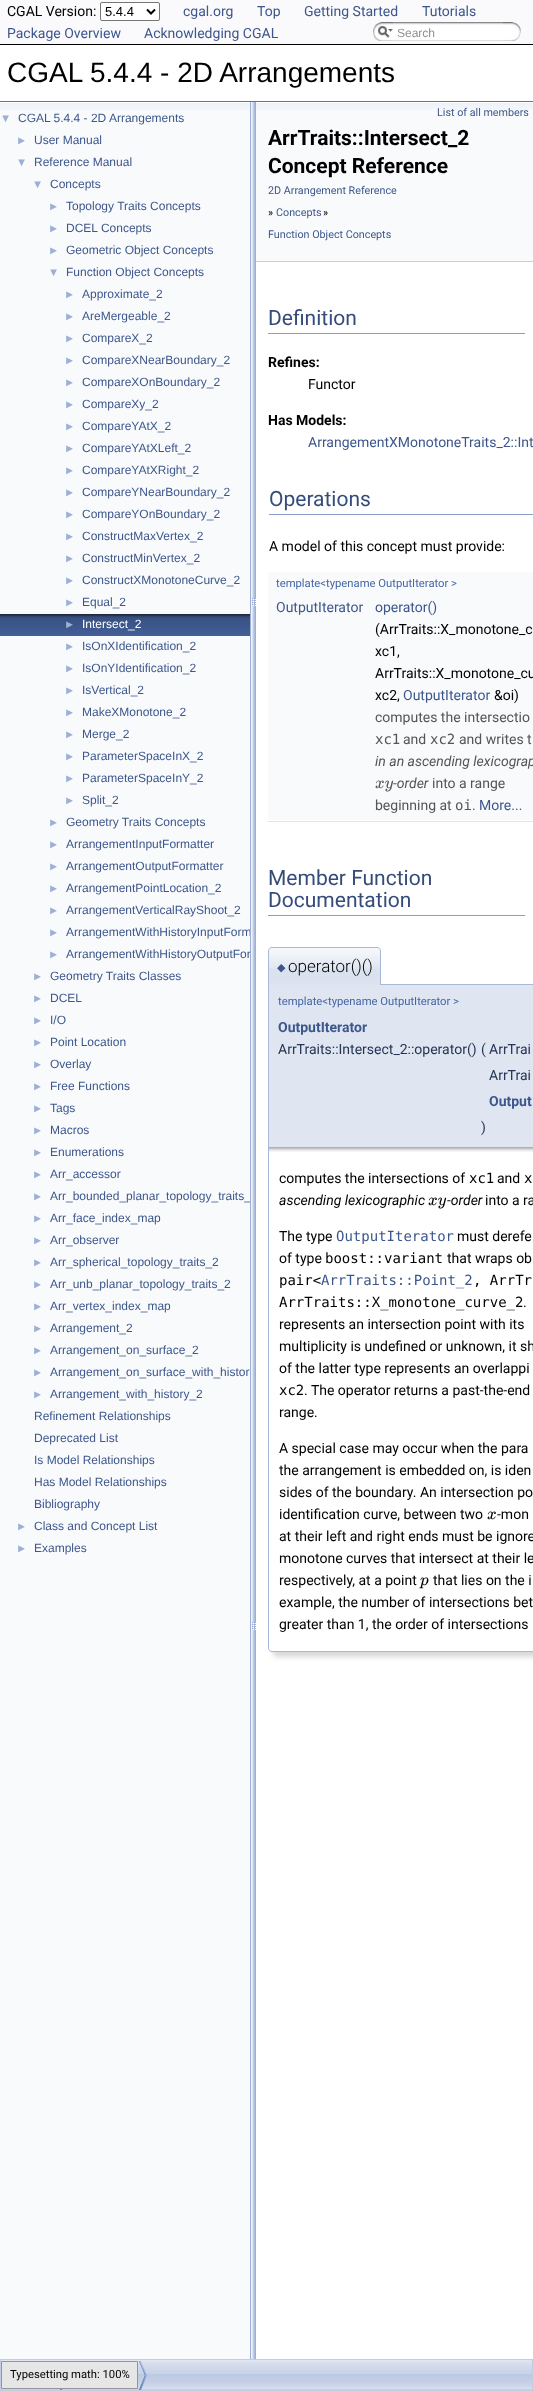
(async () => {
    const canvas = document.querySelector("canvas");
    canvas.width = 533;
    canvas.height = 2391;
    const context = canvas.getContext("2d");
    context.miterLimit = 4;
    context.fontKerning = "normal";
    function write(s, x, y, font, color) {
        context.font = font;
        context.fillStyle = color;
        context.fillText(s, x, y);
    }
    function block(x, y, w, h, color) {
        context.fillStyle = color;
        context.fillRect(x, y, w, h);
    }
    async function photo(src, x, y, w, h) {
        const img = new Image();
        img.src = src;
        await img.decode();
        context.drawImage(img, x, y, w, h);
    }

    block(0, 0, 533, 2391, "rgb(255, 255, 255)");
    block(0, 0, 533, 44, "rgb(250, 249, 251)");
    block(0, 44, 533, 1, "rgb(0, 0, 0)");
    write("CGAL Version:", 7, 16, "14px Roboto", "rgb(0, 0, 0)");
    context.fillStyle = "rgb(255, 255, 255)";
    context.beginPath();
    context.roundRect(100.5, 2.5, 59, 18, 1.5);
    context.fill();
    context.strokeStyle = "rgb(118, 118, 118)";
    context.stroke();
    context.beginPath();
    context.moveTo(147, 9.5);
    context.lineTo(151, 13.5);
    context.lineTo(155, 9.5);
    context.strokeStyle = "rgb(0, 0, 0)";
    context.lineWidth = 2;
    context.stroke();
    write("5.4.4", 105, 16, "13px Liberation Sans", "rgb(0, 0, 0)");
    write("cgal.org", 183, 16, "14px Roboto", "rgb(61, 87, 140)");
    write("Top", 257, 16, "14px Roboto", "rgb(61, 87, 140)");
    write("Getting Started", 304, 16, "14px Roboto", "rgb(61, 87, 140)");
    write("Tutorials", 422, 16, "14px Roboto", "rgb(61, 87, 140)");
    write("Package Overview", 7, 38, "14px Roboto", "rgb(61, 87, 140)");
    write("Acknowledging CGAL", 144, 38, "14px Roboto", "rgb(61, 87, 140)");
    await photo("media/1.png", 373, 22, 20, 19);
    await photo("media/2.png", 378, 26, 15, 12);
    await photo("media/3.png", 393, 22, 110, 19);
    write("Search", 397, 37, "12px Liberation Sans", "rgb(144, 144, 144)");
    await photo("media/4.png", 503, 22, 18, 19);
    block(0, 101, 533, 1, "rgb(83, 115, 180)");
    write("CGAL 5.4.4 - 2D Arrangements", 7, 82, "28px Liberation Sans", "rgb(0, 0, 0)");
    block(0, 110, 250, 2249, "rgb(249, 250, 252)");
    await photo("media/5.png", 0, 102, 250, 8);
    write("▼", 0, 122, "11.25px Liberation Sans", "rgb(156, 175, 212)");
    write("CGAL 5.4.4 - 2D Arrangements", 18, 122, "12px Liberation Sans", "rgb(61, 87, 140)");
    write("►", 16, 144, "11.25px Liberation Sans", "rgb(156, 175, 212)");
    write("User Manual", 34, 144, "12px Liberation Sans", "rgb(61, 87, 140)");
    write("▼", 16, 166, "11.25px Liberation Sans", "rgb(156, 175, 212)");
    write("Reference Manual", 34, 166, "12px Liberation Sans", "rgb(61, 87, 140)");
    write("▼", 32, 188, "11.25px Liberation Sans", "rgb(156, 175, 212)");
    write("Concepts", 50, 188, "12px Liberation Sans", "rgb(61, 87, 140)");
    write("►", 48, 210, "11.25px Liberation Sans", "rgb(156, 175, 212)");
    write("Topology Traits Concepts", 66, 210, "12px Liberation Sans", "rgb(61, 87, 140)");
    write("►", 48, 232, "11.25px Liberation Sans", "rgb(156, 175, 212)");
    write("DCEL Concepts", 66, 232, "12px Liberation Sans", "rgb(61, 87, 140)");
    write("►", 48, 254, "11.25px Liberation Sans", "rgb(156, 175, 212)");
    write("Geometric Object Concepts", 66, 254, "12px Liberation Sans", "rgb(61, 87, 140)");
    write("▼", 48, 276, "11.25px Liberation Sans", "rgb(156, 175, 212)");
    write("Function Object Concepts", 66, 276, "12px Liberation Sans", "rgb(61, 87, 140)");
    write("►", 64, 298, "11.25px Liberation Sans", "rgb(156, 175, 212)");
    write("Approximate_2", 82, 298, "12px Liberation Sans", "rgb(61, 87, 140)");
    write("►", 64, 320, "11.25px Liberation Sans", "rgb(156, 175, 212)");
    write("AreMergeable_2", 82, 320, "12px Liberation Sans", "rgb(61, 87, 140)");
    write("►", 64, 342, "11.25px Liberation Sans", "rgb(156, 175, 212)");
    write("CompareX_2", 82, 342, "12px Liberation Sans", "rgb(61, 87, 140)");
    write("►", 64, 364, "11.25px Liberation Sans", "rgb(156, 175, 212)");
    write("CompareXNearBoundary_2", 82, 364, "12px Liberation Sans", "rgb(61, 87, 140)");
    write("►", 64, 386, "11.25px Liberation Sans", "rgb(156, 175, 212)");
    write("CompareXOnBoundary_2", 82, 386, "12px Liberation Sans", "rgb(61, 87, 140)");
    write("►", 64, 408, "11.25px Liberation Sans", "rgb(156, 175, 212)");
    write("CompareXy_2", 82, 408, "12px Liberation Sans", "rgb(61, 87, 140)");
    write("►", 64, 430, "11.25px Liberation Sans", "rgb(156, 175, 212)");
    write("CompareYAtX_2", 82, 430, "12px Liberation Sans", "rgb(61, 87, 140)");
    write("►", 64, 452, "11.25px Liberation Sans", "rgb(156, 175, 212)");
    write("CompareYAtXLeft_2", 82, 452, "12px Liberation Sans", "rgb(61, 87, 140)");
    write("►", 64, 474, "11.25px Liberation Sans", "rgb(156, 175, 212)");
    write("CompareYAtXRight_2", 82, 474, "12px Liberation Sans", "rgb(61, 87, 140)");
    write("►", 64, 496, "11.25px Liberation Sans", "rgb(156, 175, 212)");
    write("CompareYNearBoundary_2", 82, 496, "12px Liberation Sans", "rgb(61, 87, 140)");
    write("►", 64, 518, "11.25px Liberation Sans", "rgb(156, 175, 212)");
    write("CompareYOnBoundary_2", 82, 518, "12px Liberation Sans", "rgb(61, 87, 140)");
    write("►", 64, 540, "11.25px Liberation Sans", "rgb(156, 175, 212)");
    write("ConstructMaxVertex_2", 82, 540, "12px Liberation Sans", "rgb(61, 87, 140)");
    write("►", 64, 562, "11.25px Liberation Sans", "rgb(156, 175, 212)");
    write("ConstructMinVertex_2", 82, 562, "12px Liberation Sans", "rgb(61, 87, 140)");
    write("►", 64, 584, "11.25px Liberation Sans", "rgb(156, 175, 212)");
    write("ConstructXMonotoneCurve_2", 82, 584, "12px Liberation Sans", "rgb(61, 87, 140)");
    write("►", 64, 606, "11.25px Liberation Sans", "rgb(156, 175, 212)");
    write("Equal_2", 82, 606, "12px Liberation Sans", "rgb(61, 87, 140)");
    await photo("media/6.png", 0, 614, 250, 22);
    write("►", 64, 628, "11.25px Liberation Sans", "rgb(156, 175, 212)");
    write("Intersect_2", 82, 628, "12px Liberation Sans", "rgb(255, 255, 255)");
    write("►", 64, 650, "11.25px Liberation Sans", "rgb(156, 175, 212)");
    write("IsOnXIdentification_2", 82, 650, "12px Liberation Sans", "rgb(61, 87, 140)");
    write("►", 64, 672, "11.25px Liberation Sans", "rgb(156, 175, 212)");
    write("IsOnYIdentification_2", 82, 672, "12px Liberation Sans", "rgb(61, 87, 140)");
    write("►", 64, 694, "11.25px Liberation Sans", "rgb(156, 175, 212)");
    write("IsVertical_2", 82, 694, "12px Liberation Sans", "rgb(61, 87, 140)");
    write("►", 64, 716, "11.25px Liberation Sans", "rgb(156, 175, 212)");
    write("MakeXMonotone_2", 82, 716, "12px Liberation Sans", "rgb(61, 87, 140)");
    write("►", 64, 738, "11.25px Liberation Sans", "rgb(156, 175, 212)");
    write("Merge_2", 82, 738, "12px Liberation Sans", "rgb(61, 87, 140)");
    write("►", 64, 760, "11.25px Liberation Sans", "rgb(156, 175, 212)");
    write("ParameterSpaceInX_2", 82, 760, "12px Liberation Sans", "rgb(61, 87, 140)");
    write("►", 64, 782, "11.25px Liberation Sans", "rgb(156, 175, 212)");
    write("ParameterSpaceInY_2", 82, 782, "12px Liberation Sans", "rgb(61, 87, 140)");
    write("►", 64, 804, "11.25px Liberation Sans", "rgb(156, 175, 212)");
    write("Split_2", 82, 804, "12px Liberation Sans", "rgb(61, 87, 140)");
    write("►", 48, 826, "11.25px Liberation Sans", "rgb(156, 175, 212)");
    write("Geometry Traits Concepts", 66, 826, "12px Liberation Sans", "rgb(61, 87, 140)");
    write("►", 48, 848, "11.25px Liberation Sans", "rgb(156, 175, 212)");
    write("ArrangementInputFormatter", 66, 848, "12px Liberation Sans", "rgb(61, 87, 140)");
    write("►", 48, 870, "11.25px Liberation Sans", "rgb(156, 175, 212)");
    write("ArrangementOutputFormatter", 66, 870, "12px Liberation Sans", "rgb(61, 87, 140)");
    write("►", 48, 892, "11.25px Liberation Sans", "rgb(156, 175, 212)");
    write("ArrangementPointLocation_2", 66, 892, "12px Liberation Sans", "rgb(61, 87, 140)");
    write("►", 48, 914, "11.25px Liberation Sans", "rgb(156, 175, 212)");
    write("ArrangementVerticalRayShoot_2", 66, 914, "12px Liberation Sans", "rgb(61, 87, 140)");
    write("►", 48, 936, "11.25px Liberation Sans", "rgb(156, 175, 212)");
    write("ArrangementWithHistoryInputForm", 66, 936, "12px Liberation Sans", "rgb(61, 87, 140)");
    write("►", 48, 958, "11.25px Liberation Sans", "rgb(156, 175, 212)");
    write("ArrangementWithHistoryOutputFor", 66, 958, "12px Liberation Sans", "rgb(61, 87, 140)");
    write("►", 32, 980, "11.25px Liberation Sans", "rgb(156, 175, 212)");
    write("Geometry Traits Classes", 50, 980, "12px Liberation Sans", "rgb(61, 87, 140)");
    write("►", 32, 1002, "11.25px Liberation Sans", "rgb(156, 175, 212)");
    write("DCEL", 50, 1002, "12px Liberation Sans", "rgb(61, 87, 140)");
    write("►", 32, 1024, "11.25px Liberation Sans", "rgb(156, 175, 212)");
    write("I/O", 50, 1024, "12px Liberation Sans", "rgb(61, 87, 140)");
    write("►", 32, 1046, "11.25px Liberation Sans", "rgb(156, 175, 212)");
    write("Point Location", 50, 1046, "12px Liberation Sans", "rgb(61, 87, 140)");
    write("►", 32, 1068, "11.25px Liberation Sans", "rgb(156, 175, 212)");
    write("Overlay", 50, 1068, "12px Liberation Sans", "rgb(61, 87, 140)");
    write("►", 32, 1090, "11.25px Liberation Sans", "rgb(156, 175, 212)");
    write("Free Functions", 50, 1090, "12px Liberation Sans", "rgb(61, 87, 140)");
    write("►", 32, 1112, "11.25px Liberation Sans", "rgb(156, 175, 212)");
    write("Tags", 50, 1112, "12px Liberation Sans", "rgb(61, 87, 140)");
    write("►", 32, 1134, "11.25px Liberation Sans", "rgb(156, 175, 212)");
    write("Macros", 50, 1134, "12px Liberation Sans", "rgb(61, 87, 140)");
    write("►", 32, 1156, "11.25px Liberation Sans", "rgb(156, 175, 212)");
    write("Enumerations", 50, 1156, "12px Liberation Sans", "rgb(61, 87, 140)");
    write("►", 32, 1178, "11.25px Liberation Sans", "rgb(156, 175, 212)");
    write("Arr_accessor", 50, 1178, "12px Liberation Sans", "rgb(61, 87, 140)");
    write("►", 32, 1200, "11.25px Liberation Sans", "rgb(156, 175, 212)");
    write("Arr_bounded_planar_topology_traits_", 50, 1200, "12px Liberation Sans", "rgb(61, 87, 140)");
    write("►", 32, 1222, "11.25px Liberation Sans", "rgb(156, 175, 212)");
    write("Arr_face_index_map", 50, 1222, "12px Liberation Sans", "rgb(61, 87, 140)");
    write("►", 32, 1244, "11.25px Liberation Sans", "rgb(156, 175, 212)");
    write("Arr_observer", 50, 1244, "12px Liberation Sans", "rgb(61, 87, 140)");
    write("►", 32, 1266, "11.25px Liberation Sans", "rgb(156, 175, 212)");
    write("Arr_spherical_topology_traits_2", 50, 1266, "12px Liberation Sans", "rgb(61, 87, 140)");
    write("►", 32, 1288, "11.25px Liberation Sans", "rgb(156, 175, 212)");
    write("Arr_unb_planar_topology_traits_2", 50, 1288, "12px Liberation Sans", "rgb(61, 87, 140)");
    write("►", 32, 1310, "11.25px Liberation Sans", "rgb(156, 175, 212)");
    write("Arr_vertex_index_map", 50, 1310, "12px Liberation Sans", "rgb(61, 87, 140)");
    write("►", 32, 1332, "11.25px Liberation Sans", "rgb(156, 175, 212)");
    write("Arrangement_2", 50, 1332, "12px Liberation Sans", "rgb(61, 87, 140)");
    write("►", 32, 1354, "11.25px Liberation Sans", "rgb(156, 175, 212)");
    write("Arrangement_on_surface_2", 50, 1354, "12px Liberation Sans", "rgb(61, 87, 140)");
    write("►", 32, 1376, "11.25px Liberation Sans", "rgb(156, 175, 212)");
    write("Arrangement_on_surface_with_histor", 50, 1376, "12px Liberation Sans", "rgb(61, 87, 140)");
    write("►", 32, 1398, "11.25px Liberation Sans", "rgb(156, 175, 212)");
    write("Arrangement_with_history_2", 50, 1398, "12px Liberation Sans", "rgb(61, 87, 140)");
    write("Refinement Relationships", 34, 1420, "12px Liberation Sans", "rgb(61, 87, 140)");
    write("Deprecated List", 34, 1442, "12px Liberation Sans", "rgb(61, 87, 140)");
    write("Is Model Relationships", 34, 1464, "12px Liberation Sans", "rgb(61, 87, 140)");
    write("Has Model Relationships", 34, 1486, "12px Liberation Sans", "rgb(61, 87, 140)");
    write("Bibliography", 34, 1508, "12px Liberation Sans", "rgb(61, 87, 140)");
    write("►", 16, 1530, "11.25px Liberation Sans", "rgb(156, 175, 212)");
    write("Class and Concept List", 34, 1530, "12px Liberation Sans", "rgb(61, 87, 140)");
    write("►", 16, 1552, "11.25px Liberation Sans", "rgb(156, 175, 212)");
    write("Examples", 34, 1552, "12px Liberation Sans", "rgb(61, 87, 140)");
    await photo("media/7.png", 250, 102, 6, 2257);
    block(256, 110, 277, 151, "rgb(249, 250, 252)");
    await photo("media/8.png", 256, 102, 277, 8);
    block(256, 261, 277, 1, "rgb(196, 207, 229)");
    write("List of all members", 437, 116, "10.75px Roboto", "rgb(61, 87, 140)");
    write("ArrTraits::Intersect_2", 268, 145, "bold 21px Roboto", "rgb(0, 0, 0)");
    write("Concept Reference", 268, 173, "bold 21px Roboto", "rgb(0, 0, 0)");
    write("2D Arrangement Reference", 268, 194, "10.75px Roboto", "rgb(61, 87, 140)");
    write("»", 268, 216, "10.75px Roboto", "rgb(0, 0, 0)");
    write("Concepts", 276, 216, "10.75px Roboto", "rgb(61, 87, 140)");
    write("»", 323, 216, "10.75px Roboto", "rgb(0, 0, 0)");
    write("Function Object Concepts", 268, 238, "10.75px Roboto", "rgb(61, 87, 140)");
    block(268, 333, 257, 1, "rgb(135, 158, 203)");
    write("Definition", 268, 325, "21px Roboto", "rgb(53, 76, 123)");
    write("Refines:", 268, 367, "bold 14px Roboto", "rgb(0, 0, 0)");
    write("Functor", 308, 389, "14px Roboto", "rgb(0, 0, 0)");
    write("Has Models:", 268, 425, "bold 14px Roboto", "rgb(0, 0, 0)");
    write("ArrangementXMonotoneTraits_2::Int", 308, 447, "14px Roboto", "rgb(61, 87, 140)");
    block(269, 514, 264, 1, "rgb(135, 158, 203)");
    write("Operations", 269, 506, "21px Roboto", "rgb(53, 76, 123)");
    write("A model of this concept must provide:", 269, 551, "14px Roboto", "rgb(0, 0, 0)");
    block(268, 572, 265, 23, "rgb(249, 250, 252)");
    write("template<typename OutputIterator >", 276, 587, "11.25px Roboto", "rgb(70, 101, 162)");
    block(268, 595, 265, 111, "rgb(249, 250, 252)");
    write("OutputIterator", 276, 612, "14px Roboto", "rgb(61, 87, 140)");
    write("operator()", 375, 612, "14px Roboto", "rgb(61, 87, 140)");
    write("(ArrTraits::X_monotone_c", 375, 634, "14px Roboto", "rgb(0, 0, 0)");
    write("xc1,", 375, 656, "14px Roboto", "rgb(0, 0, 0)");
    write("ArrTraits::X_monotone_cu", 375, 678, "14px Roboto", "rgb(0, 0, 0)");
    write("xc2,", 375, 700, "14px Roboto", "rgb(0, 0, 0)");
    write("OutputIterator", 403, 700, "14px Roboto", "rgb(61, 87, 140)");
    write("&oi)", 494, 700, "14px Roboto", "rgb(0, 0, 0)");
    block(268, 706, 265, 114, "rgb(249, 250, 252)");
    write("computes the intersectio", 375, 722, "14px Roboto", "rgb(85, 85, 85)");
    write("xc1", 375, 744, "14px DejaVu Sans Mono", "rgb(85, 85, 85)");
    write("and", 403, 744, "14px Roboto", "rgb(85, 85, 85)");
    write("xc2", 430, 744, "14px DejaVu Sans Mono", "rgb(85, 85, 85)");
    write("and writes t", 459, 744, "14px Roboto", "rgb(85, 85, 85)");
    write("in an ascending lexicograp", 375, 766, "italic 14px Roboto", "rgb(85, 85, 85)");
    write("-order", 393, 788, "italic 14px Roboto", "rgb(85, 85, 85)");
    write("xy", 375, 788, "italic 17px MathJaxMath", "rgb(85, 85, 85)");
    write("into a range", 432, 788, "14px Roboto", "rgb(85, 85, 85)");
    write("beginning at", 375, 810, "14px Roboto", "rgb(85, 85, 85)");
    write("oi", 455, 810, "14px DejaVu Sans Mono", "rgb(85, 85, 85)");
    write(".", 472, 810, "14px Roboto", "rgb(85, 85, 85)");
    write("More...", 479, 810, "14px Roboto", "rgb(61, 87, 140)");
    block(268, 821, 265, 1, "rgb(222, 228, 240)");
    block(268, 915, 257, 1, "rgb(135, 158, 203)");
    write("Member Function", 268, 885, "21px Roboto", "rgb(53, 76, 123)");
    write("Documentation", 268, 907, "21px Roboto", "rgb(53, 76, 123)");
    block(269, 985, 264, 162, "rgb(223, 229, 241)");
    context.fillStyle = "rgb(168, 184, 217)";
    context.beginPath();
    context.moveTo(268, 984);
    context.lineTo(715, 984);
    context.bezierCurveTo(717, 984, 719, 986, 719, 988);
    context.lineTo(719, 1147);
    context.lineTo(268, 1147);
    context.closePath();
    context.moveTo(269, 985);
    context.lineTo(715, 985);
    context.bezierCurveTo(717, 985, 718, 986, 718, 988);
    context.lineTo(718, 1147);
    context.lineTo(269, 1147);
    context.closePath();
    context.fill("evenodd");
    await photo("media/9.png", 268, 948, 113, 37);
    context.beginPath();
    context.moveTo(272, 947);
    context.lineTo(377, 947);
    context.bezierCurveTo(379, 947, 381, 949, 381, 951);
    context.lineTo(381, 985);
    context.lineTo(268, 985);
    context.lineTo(268, 951);
    context.bezierCurveTo(268, 949, 270, 947, 272, 947);
    context.closePath();
    context.moveTo(272, 948);
    context.lineTo(377, 948);
    context.bezierCurveTo(379, 948, 380, 949, 380, 951);
    context.lineTo(380, 985);
    context.lineTo(269, 985);
    context.lineTo(269, 951);
    context.bezierCurveTo(269, 949, 270, 948, 272, 948);
    context.closePath();
    context.fill("evenodd");
    write("◆", 277, 971, "11px DejaVu Sans", "rgb(61, 87, 140)");
    write("operator()()", 288, 972, "300 17px Roboto", "rgb(0, 0, 0)");
    write("template<typename OutputIterator >", 278, 1005, "11.25px Roboto", "rgb(70, 101, 162)");
    write("OutputIterator", 278, 1032, "bold 14px Roboto", "rgb(61, 87, 140)");
    write("ArrTraits::Intersect_2::operator()", 278, 1054, "14px Roboto", "rgb(37, 53, 85)");
    write("(", 481, 1054, "14px Roboto", "rgb(37, 53, 85)");
    write("ArrTrai", 489, 1054, "14px Roboto", "rgb(37, 53, 85)");
    write("ArrTrai", 489, 1080, "14px Roboto", "rgb(37, 53, 85)");
    write("Output", 489, 1106, "bold 14px Roboto", "rgb(61, 87, 140)");
    write(")", 481, 1132, "14px Roboto", "rgb(37, 53, 85)");
    context.fillStyle = "rgba(0, 0, 0, 0.15)";
    context.filter = "blur(2.5px)";
    context.beginPath();
    context.roundRect(273, 1152, 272, 505, 4);
    context.fill();
    context.filter = "none";
    context.fillStyle = "rgb(255, 255, 255)";
    context.beginPath();
    context.roundRect(268, 1147, 265, 505, [0, 0, 0, 4]);
    context.fill();
    await photo("media/10.png", 269, 1147, 264, 5);
    context.fillStyle = "rgb(168, 184, 217)";
    context.beginPath();
    context.moveTo(268, 1147);
    context.lineTo(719, 1147);
    context.lineTo(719, 1648);
    context.bezierCurveTo(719, 1650, 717, 1652, 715, 1652);
    context.lineTo(272, 1652);
    context.bezierCurveTo(270, 1652, 268, 1650, 268, 1648);
    context.closePath();
    context.moveTo(269, 1147);
    context.lineTo(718, 1147);
    context.lineTo(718, 1648);
    context.bezierCurveTo(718, 1650, 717, 1651, 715, 1651);
    context.lineTo(272, 1651);
    context.bezierCurveTo(270, 1651, 269, 1650, 269, 1648);
    context.closePath();
    context.fill("evenodd");
    write("computes the intersections of", 279, 1183, "14px Roboto", "rgb(0, 0, 0)");
    write("xc1", 469, 1183, "14px DejaVu Sans Mono", "rgb(0, 0, 0)");
    write("and", 497, 1183, "14px Roboto", "rgb(0, 0, 0)");
    write("x", 524, 1183, "14px DejaVu Sans Mono", "rgb(0, 0, 0)");
    write("ascending lexicographic", 279, 1205, "italic 14px Roboto", "rgb(0, 0, 0)");
    write("-order", 447, 1205, "italic 14px Roboto", "rgb(0, 0, 0)");
    write("xy", 428, 1205, "italic 17px MathJaxMath", "rgb(0, 0, 0)");
    write("into a ra", 485, 1205, "14px Roboto", "rgb(0, 0, 0)");
    write("The type", 279, 1241, "14px Roboto", "rgb(0, 0, 0)");
    write("OutputIterator", 336, 1241, "14px DejaVu Sans Mono", "rgb(61, 87, 140)");
    write("must derefe", 457, 1241, "14px Roboto", "rgb(0, 0, 0)");
    write("of type", 279, 1263, "14px Roboto", "rgb(0, 0, 0)");
    write("boost::variant", 325, 1263, "14px DejaVu Sans Mono", "rgb(0, 0, 0)");
    write("that wraps ob", 447, 1263, "14px Roboto", "rgb(0, 0, 0)");
    write("pair<", 279, 1285, "14px DejaVu Sans Mono", "rgb(0, 0, 0)");
    write("ArrTraits::Point_2", 321, 1285, "14px DejaVu Sans Mono", "rgb(61, 87, 140)");
    write(", ArrTr", 473, 1285, "14px DejaVu Sans Mono", "rgb(0, 0, 0)");
    write("ArrTraits::X_monotone_curve_2", 279, 1307, "14px DejaVu Sans Mono", "rgb(0, 0, 0)");
    write(".", 523, 1307, "14px Roboto", "rgb(0, 0, 0)");
    write("represents an intersection point with its", 279, 1329, "14px Roboto", "rgb(0, 0, 0)");
    write("multiplicity is undefined or unknown, it sh", 279, 1351, "14px Roboto", "rgb(0, 0, 0)");
    write("of the latter type represents an overlappi", 279, 1373, "14px Roboto", "rgb(0, 0, 0)");
    write("xc2", 279, 1395, "14px DejaVu Sans Mono", "rgb(0, 0, 0)");
    write(". The operator returns a past-the-end", 304, 1395, "14px Roboto", "rgb(0, 0, 0)");
    write("range.", 279, 1417, "14px Roboto", "rgb(0, 0, 0)");
    write("A special case may occur when the para", 279, 1453, "14px Roboto", "rgb(0, 0, 0)");
    write("the arrangement is embedded on, is iden", 279, 1475, "14px Roboto", "rgb(0, 0, 0)");
    write("sides of the boundary. An intersection po", 279, 1497, "14px Roboto", "rgb(0, 0, 0)");
    write("identification curve, between two", 279, 1519, "14px Roboto", "rgb(0, 0, 0)");
    write("x", 487, 1519, "italic 17px MathJaxMath", "rgb(0, 0, 0)");
    write("-mon", 497, 1519, "14px Roboto", "rgb(0, 0, 0)");
    write("at their left and right ends must be ignore", 279, 1541, "14px Roboto", "rgb(0, 0, 0)");
    write("monotone curves that intersect at their le", 279, 1563, "14px Roboto", "rgb(0, 0, 0)");
    write("respectively, at a point", 279, 1585, "14px Roboto", "rgb(0, 0, 0)");
    write("p", 420, 1585, "italic 17px MathJaxMath", "rgb(0, 0, 0)");
    write("that lies on the i", 433, 1585, "14px Roboto", "rgb(0, 0, 0)");
    write("example, the number of intersections bet", 279, 1607, "14px Roboto", "rgb(0, 0, 0)");
    write("greater than 1, the order of intersections", 279, 1629, "14px Roboto", "rgb(0, 0, 0)");
    await photo("media/11.png", 1, 2360, 531, 30);
    context.strokeStyle = "rgb(194, 205, 228)";
    context.lineWidth = 1;
    context.strokeRect(0.5, 2359.5, 532, 31);
    await photo("media/12.png", 60, 2389, 3, 1);
    await photo("media/13.png", 139, 2361, 8, 29);
    context.fillStyle = "rgb(230, 230, 230)";
    context.beginPath();
    context.rect(1.5, 2361.5, 136, 27);
    context.fill();
    context.strokeStyle = "rgb(149, 149, 149)";
    context.stroke();
    write("Typesetting math: 100%", 10, 2378, "11.25px Roboto", "rgb(0, 0, 0)");
})();
